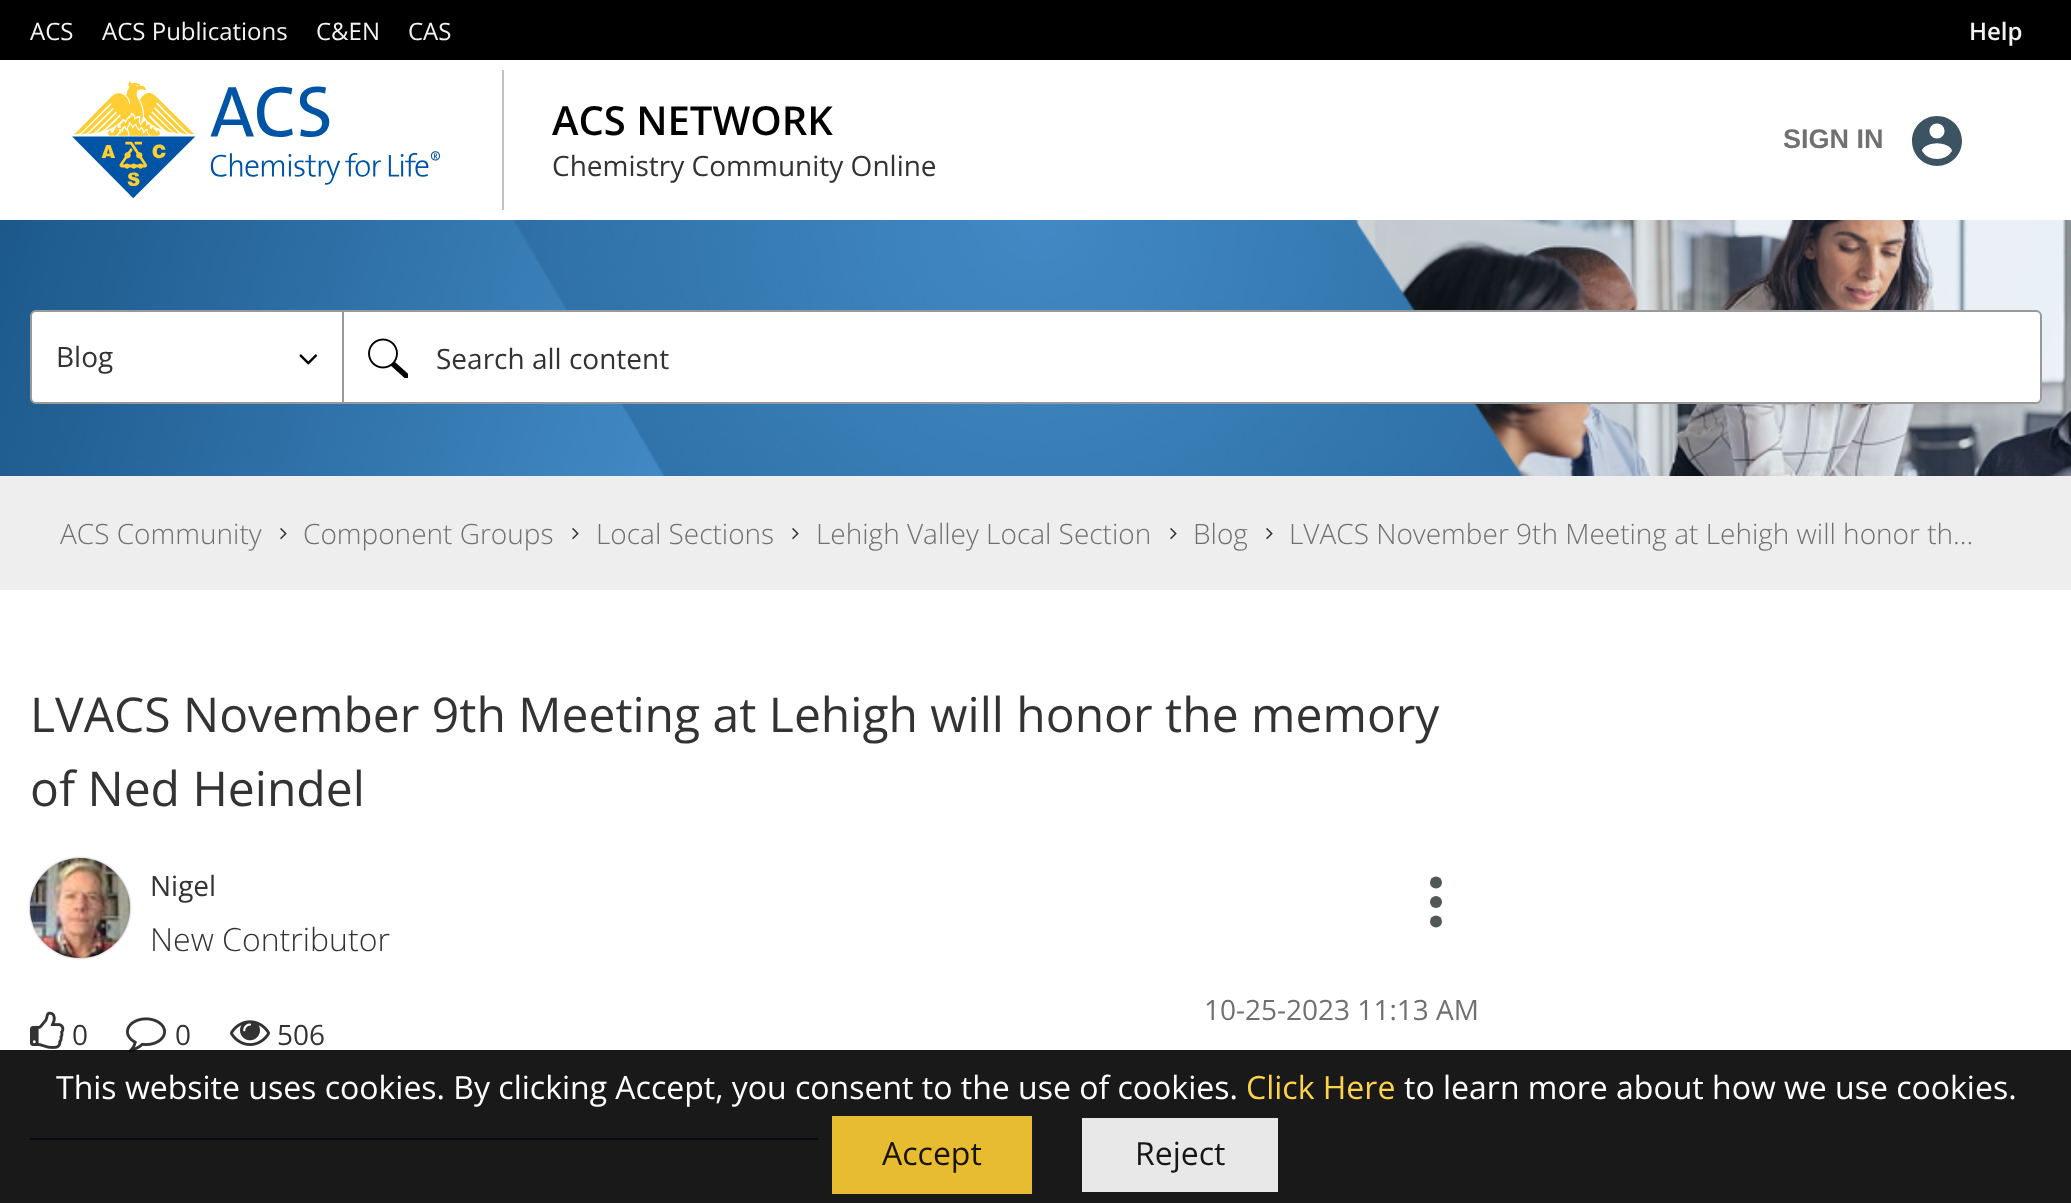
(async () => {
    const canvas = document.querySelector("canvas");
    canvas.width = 2071;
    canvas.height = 1203;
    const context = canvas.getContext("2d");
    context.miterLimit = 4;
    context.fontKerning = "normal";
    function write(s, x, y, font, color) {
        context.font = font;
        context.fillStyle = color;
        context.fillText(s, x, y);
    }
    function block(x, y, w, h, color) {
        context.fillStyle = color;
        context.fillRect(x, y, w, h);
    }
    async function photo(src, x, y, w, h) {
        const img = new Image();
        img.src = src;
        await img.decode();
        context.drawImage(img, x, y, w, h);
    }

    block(0, 0, 2071, 1203, "rgb(255, 255, 255)");
    block(0, 0, 2071, 60, "rgb(0, 0, 0)");
    write("ACS", 30, 40, "24px Open Sans", "rgb(242, 243, 246)");
    write("ACS Publications", 102, 40, "24px Open Sans", "rgb(242, 243, 246)");
    write("C&EN", 316, 40, "24px Open Sans", "rgb(242, 243, 246)");
    write("CAS", 408, 40, "24px Open Sans", "rgb(242, 243, 246)");
    write("Help", 1969, 40, "600 24px Open Sans", "rgb(242, 243, 246)");
    block(502, 70, 2, 140, "rgb(194, 194, 194)");
    await photo("media/1.png", 72, 81, 369, 118);
    write("ACS NETWORK", 552, 135, "600 40px Open Sans", "rgb(0, 0, 0)");
    write("Chemistry Community Online", 552, 176, "28px Open Sans", "rgb(51, 51, 51)");
    write("SIGN IN", 1783, 148, "bold 27px Liberation Sans", "rgb(112, 112, 112)");
    await photo("media/2.png", 1912, 116, 50, 50);
    await photo("media/3.png", 0, 220, 2071, 256);
    context.fillStyle = "rgb(255, 255, 255)";
    context.beginPath();
    context.roundRect(343, 311, 1698, 92, [0, 5, 5, 0]);
    context.fill();
    context.strokeStyle = "rgb(153, 153, 153)";
    context.lineWidth = 2;
    context.stroke();
    context.beginPath();
    context.roundRect(31, 311, 312, 92, [5, 0, 0, 5]);
    context.fill();
    context.stroke();
    write("Blog", 56, 367, "28px Open Sans", "rgb(51, 51, 51)");
    await photo("media/4.png", 299, 354, 19, 11);
    await photo("media/5.png", 368, 338, 40, 40);
    write("Search all content", 436, 369, "28px Open Sans", "rgb(51, 51, 51)");
    block(0, 476, 2071, 114, "rgb(238, 238, 238)");
    write("ACS Community", 60, 544, "300 28px Open Sans", "rgb(112, 112, 112)");
    await photo("media/6.png", 280, 528, 7, 12);
    write("Component Groups", 303, 544, "300 28px Open Sans", "rgb(112, 112, 112)");
    await photo("media/6.png", 572, 528, 7, 12);
    write("Local Sections", 596, 544, "300 28px Open Sans", "rgb(112, 112, 112)");
    await photo("media/6.png", 792, 528, 7, 12);
    write("Lehigh Valley Local Section", 816, 544, "300 28px Open Sans", "rgb(112, 112, 112)");
    await photo("media/6.png", 1170, 528, 7, 12);
    write("Blog", 1193, 544, "300 28px Open Sans", "rgb(112, 112, 112)");
    await photo("media/6.png", 1266, 528, 7, 12);
    write("LVACS November 9th Meeting at Lehigh will honor th...", 1289, 544, "300 28px Open Sans", "rgb(112, 112, 112)");
    write("LVACS November 9th Meeting at Lehigh will honor the memory", 30, 732, "48px Open Sans", "rgb(51, 51, 51)");
    write("of Ned Heindel", 30, 806, "48px Open Sans", "rgb(51, 51, 51)");
    context.fillStyle = "rgb(153, 153, 153)";
    context.filter = "blur(1px)";
    context.beginPath();
    context.roundRect(30, 858, 100, 100, 50);
    context.fill();
    context.filter = "none";
    await photo("media/7.png", 30, 858, 100, 100);
    write("Nigel", 150, 896, "28px Open Sans", "rgb(51, 51, 51)");
    write("New Contributor", 150, 951, "300 32px Open Sans", "rgb(51, 51, 51)");
    await photo("media/8.png", 30, 1011, 35, 38);
    write("0", 72, 1045, "28px Open Sans", "rgb(51, 51, 51)");
    await photo("media/9.png", 126, 1017, 40, 35);
    write("0", 175, 1045, "28px Open Sans", "rgb(51, 51, 51)");
    await photo("media/10.png", 230, 1020, 40, 26);
    write("506", 277, 1045, "28px Open Sans", "rgb(51, 51, 51)");
    context.fillStyle = "rgb(80, 88, 88)";
    context.beginPath();
    context.arc(1436, 882.5, 6, 0, Math.PI * 2);
    context.fill();
    context.beginPath();
    context.arc(1436, 902, 6, 0, Math.PI * 2);
    context.fill();
    context.beginPath();
    context.arc(1436, 921.5, 6, 0, Math.PI * 2);
    context.fill();
    write("10-25-2023 11:13 AM", 1204, 1020, "28px Open Sans", "rgb(112, 112, 112)");
    block(30, 1138, 788, 2, "rgb(53, 112, 181)");
    block(0, 1050, 2071, 153, "rgba(0, 0, 0, 0.9)");
    write("This website uses cookies. By clicking Accept, you consent to the use of cookies.", 56, 1099, "32px Open Sans", "rgb(255, 255, 255)");
    write("Click Here", 1246, 1099, "32px Open Sans", "rgb(255, 211, 72)");
    write("to learn more about how we use cookies.", 1404, 1099, "32px Open Sans", "rgb(255, 255, 255)");
    block(832, 1116, 200, 78, "rgba(255, 206, 52, 0.9)");
    write("Accept", 882, 1165, "32px Open Sans", "rgb(23, 19, 5)");
    block(1082, 1118, 196, 74, "rgba(255, 255, 255, 0.9)");
    write("Reject", 1135, 1165, "32px Open Sans", "rgb(23, 23, 23)");
})();
